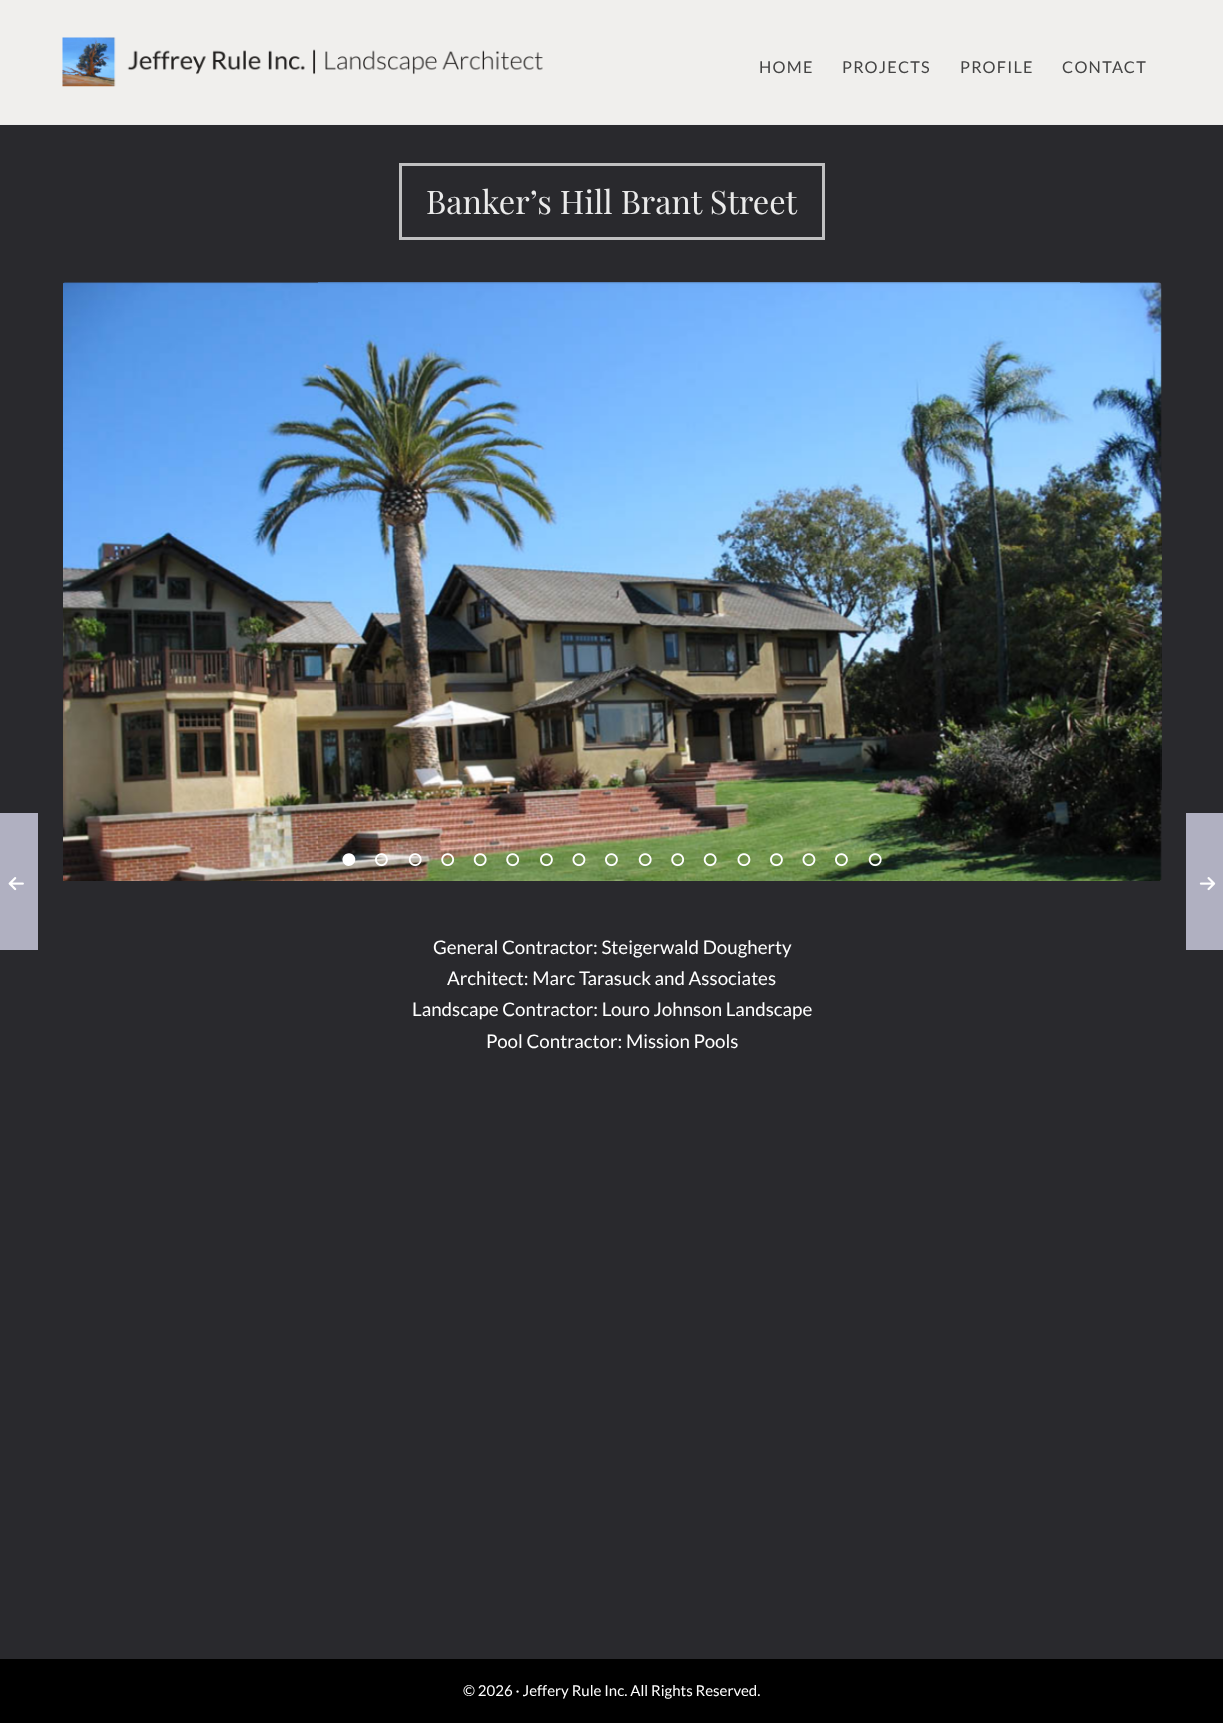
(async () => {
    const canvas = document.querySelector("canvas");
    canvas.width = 1223;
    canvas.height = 1723;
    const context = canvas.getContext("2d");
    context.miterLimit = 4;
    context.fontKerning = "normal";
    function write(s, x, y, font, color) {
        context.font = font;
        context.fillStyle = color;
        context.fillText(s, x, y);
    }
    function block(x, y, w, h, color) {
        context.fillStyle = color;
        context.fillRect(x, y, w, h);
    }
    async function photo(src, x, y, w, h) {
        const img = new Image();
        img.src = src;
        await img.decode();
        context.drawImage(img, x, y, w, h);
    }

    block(0, 0, 1223, 1723, "rgb(41, 41, 45)");
    block(0, 0, 1223, 124, "rgb(240, 239, 237)");
    block(0, 124, 1223, 1, "rgb(235, 235, 235)");
    await photo("media/1.png", 62, 37, 481, 50);
    context.letterSpacing = "1.25px";
    write("HOME", 759, 73, "16.25px Lato", "rgb(68, 68, 68)");
    write("PROJECTS", 842, 73, "16.25px Lato", "rgb(68, 68, 68)");
    write("PROFILE", 960, 73, "16.25px Lato", "rgb(68, 68, 68)");
    write("CONTACT", 1062, 73, "16.25px Lato", "rgb(68, 68, 68)");
    context.strokeStyle = "rgb(191, 191, 192)";
    context.lineWidth = 3;
    context.strokeRect(400.5, 164.5, 423, 74);
    context.letterSpacing = "0px";
    write("Banker’s Hill Brant Street", 426, 214, "32.5px Playfair Display", "rgb(234, 234, 234)");
    block(0, 813, 38, 137, "rgb(176, 176, 193)");
    await photo("media/2.png", 8, 877, 16, 14);
    block(1186, 813, 37, 137, "rgb(176, 176, 193)");
    await photo("media/3.png", 1199, 877, 17, 14);
    block(63, 283, 1098, 598, "rgb(67, 67, 74)");
    await photo("media/4.png", 63, 282, 1099, 599);
    context.fillStyle = "rgb(255, 255, 255)";
    context.beginPath();
    context.moveTo(354.5, 856.5);
    context.bezierCurveTo(358.5, 863.5, 347.5, 870, 343.5, 863);
    context.bezierCurveTo(339, 855.5, 350, 849, 354.5, 856.5);
    context.closePath();
    context.fill();
    await photo("media/5.png", 375, 853, 13, 14);
    await photo("media/6.png", 408, 853, 14, 14);
    await photo("media/7.png", 441, 853, 14, 14);
    await photo("media/8.png", 473, 853, 14, 14);
    await photo("media/9.png", 506, 853, 14, 14);
    await photo("media/10.png", 540, 853, 13, 14);
    await photo("media/11.png", 572, 853, 14, 14);
    await photo("media/12.png", 605, 853, 13, 14);
    await photo("media/13.png", 638, 853, 14, 14);
    await photo("media/14.png", 671, 853, 14, 14);
    await photo("media/15.png", 703, 853, 14, 14);
    await photo("media/16.png", 737, 853, 14, 14);
    await photo("media/17.png", 770, 853, 13, 14);
    await photo("media/18.png", 802, 853, 14, 14);
    await photo("media/19.png", 835, 853, 13, 14);
    await photo("media/20.png", 868, 853, 14, 14);
    write("General Contractor: Steigerwald Dougherty", 433, 954, "18.75px Lato", "rgb(255, 255, 255)");
    write("Architect: Marc Tarasuck and Associates", 447, 985, "18.75px Lato", "rgb(255, 255, 255)");
    write("Landscape Contractor: Louro Johnson Landscape", 412, 1016, "18.75px Lato", "rgb(255, 255, 255)");
    write("Pool Contractor: Mission Pools", 486, 1048, "18.75px Lato", "rgb(255, 255, 255)");
    block(0, 1659, 1223, 64, "rgb(0, 0, 0)");
    write("© 2026 · Jeffery Rule Inc. All Rights Reserved.", 463, 1696, "15px Lato", "rgb(255, 255, 255)");
})();
